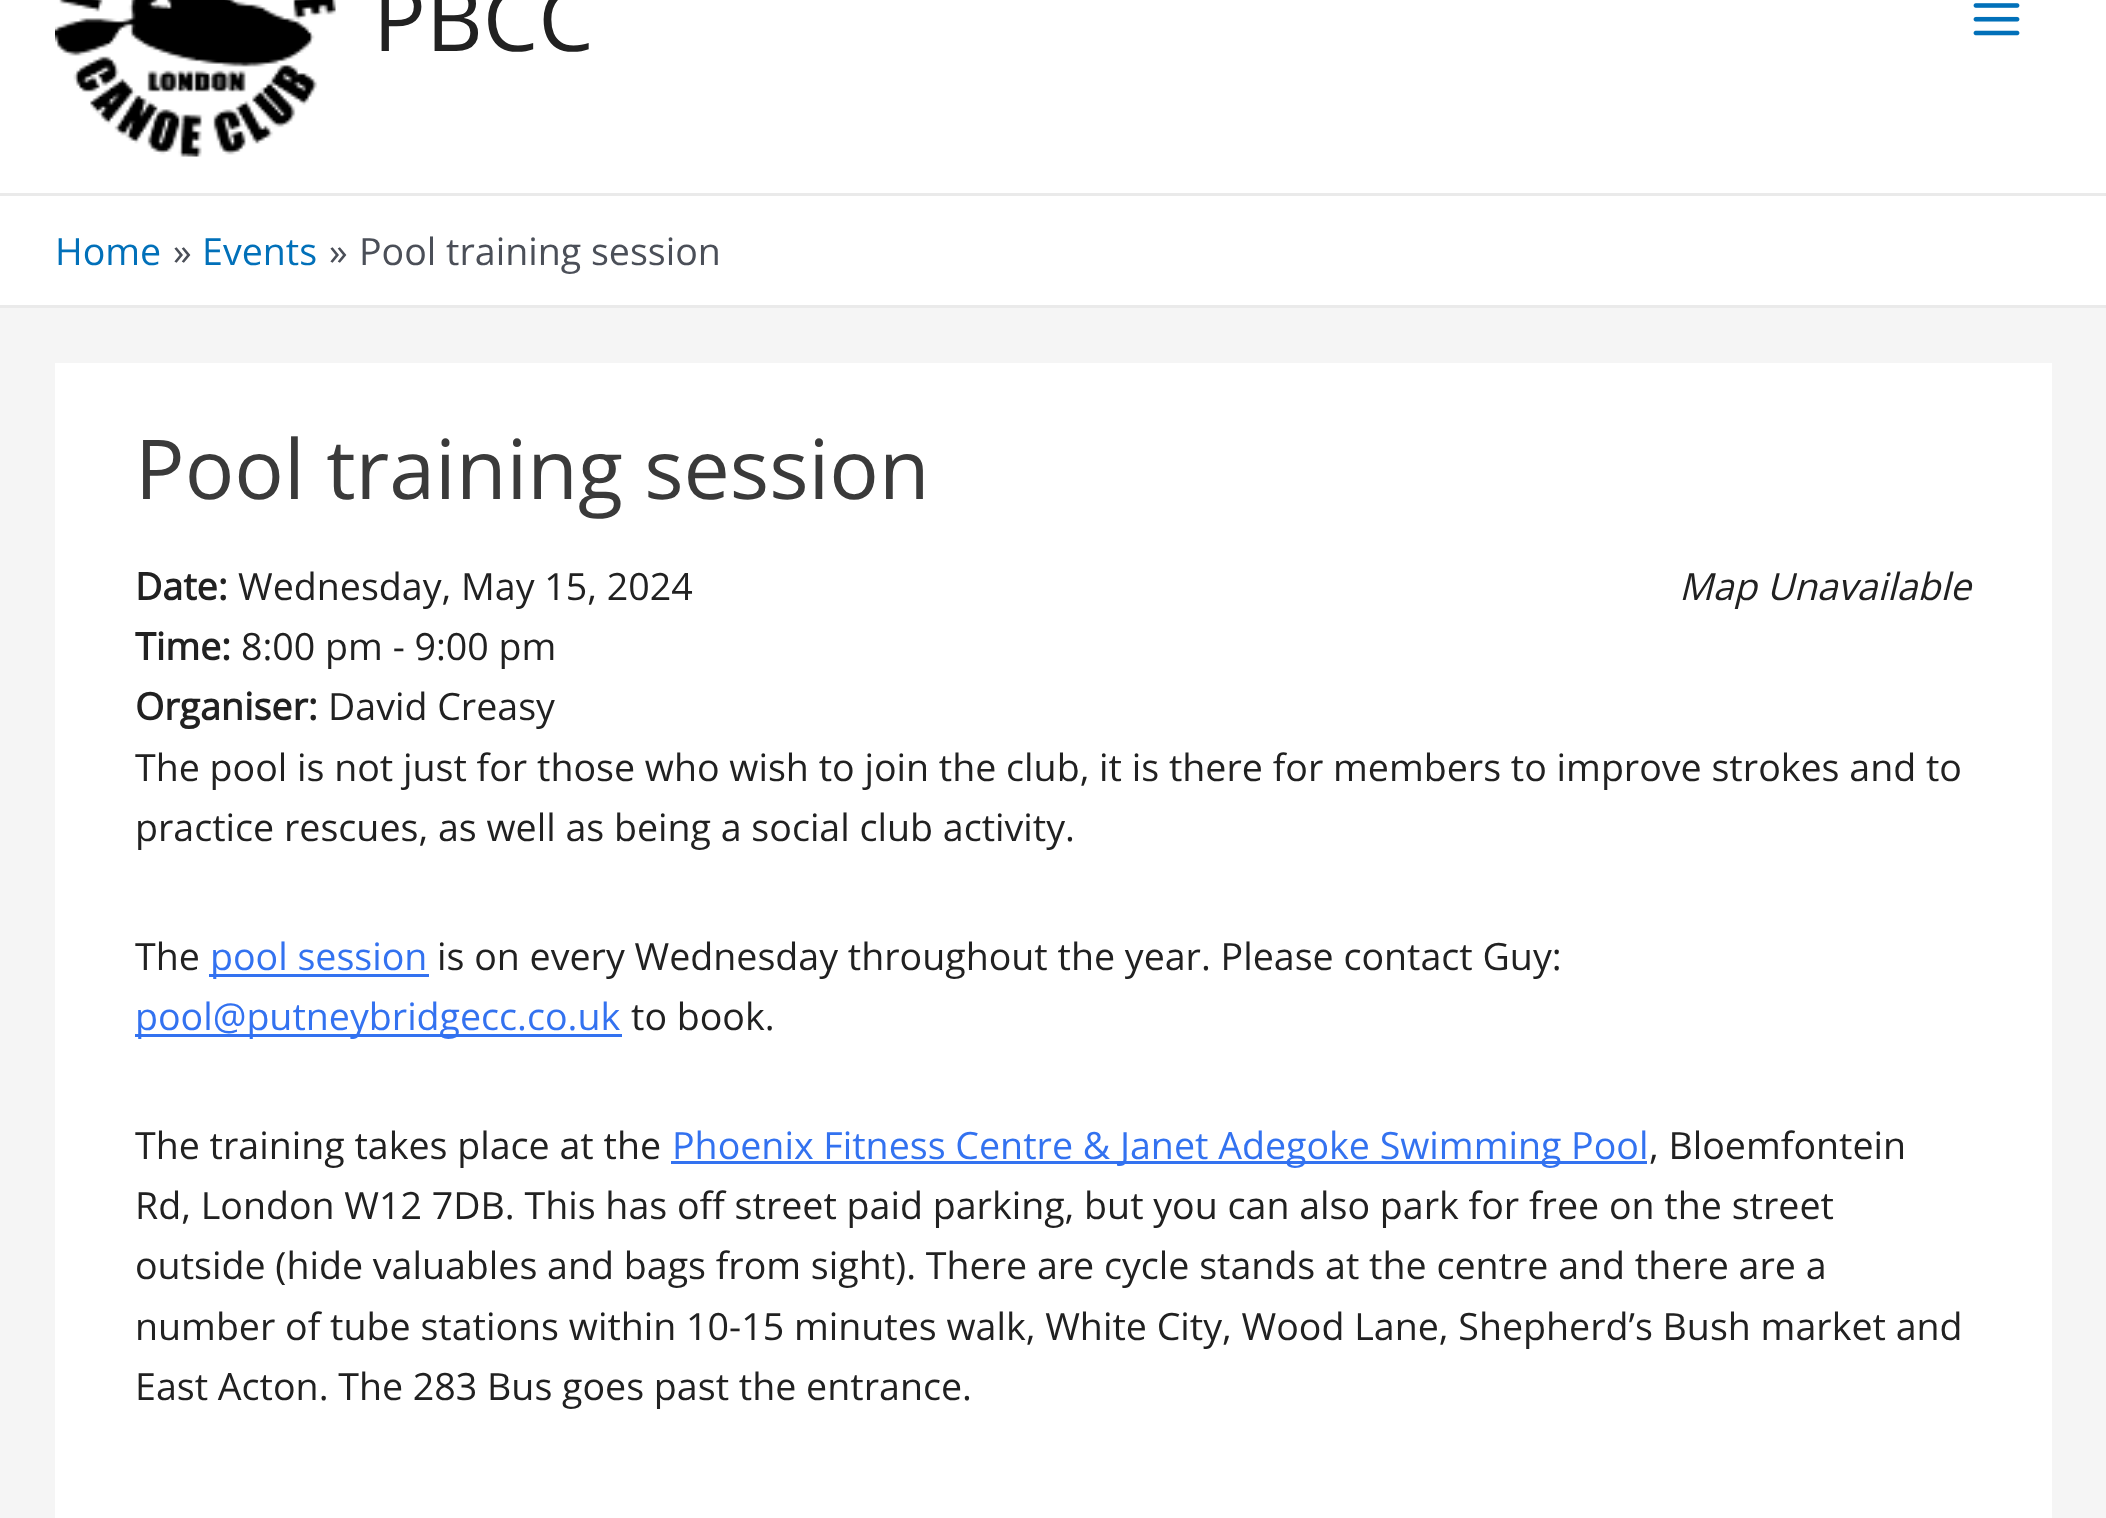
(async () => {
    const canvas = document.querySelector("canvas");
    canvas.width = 2106;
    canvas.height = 1518;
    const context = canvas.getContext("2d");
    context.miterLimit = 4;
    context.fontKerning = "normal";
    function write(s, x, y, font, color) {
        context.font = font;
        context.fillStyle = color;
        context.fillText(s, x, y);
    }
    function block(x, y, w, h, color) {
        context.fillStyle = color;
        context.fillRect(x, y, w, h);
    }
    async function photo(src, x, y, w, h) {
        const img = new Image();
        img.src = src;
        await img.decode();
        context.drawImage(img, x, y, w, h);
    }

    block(0, 0, 2106, 1518, "rgb(245, 245, 245)");
    block(0, 0, 2106, 193, "rgb(255, 255, 255)");
    block(0, 193, 2106, 3, "rgb(234, 234, 234)");
    await photo("media/1.png", 55, 0, 281, 157);
    write("PBCC", 373, 51, "88px Open Sans", "rgb(33, 33, 33)");
    await photo("media/2.png", 1973, 3, 47, 33);
    block(0, 196, 2106, 109, "rgb(255, 255, 255)");
    block(0, 305, 2106, 3, "rgb(234, 234, 234)");
    write("Home", 55, 265, "37.6px Open Sans", "rgb(1, 112, 185)");
    write("»", 173, 265, "37.6px Open Sans", "rgb(75, 79, 88)");
    write("Events", 202, 265, "37.6px Open Sans", "rgb(1, 112, 185)");
    write("»", 329, 265, "37.6px Open Sans", "rgb(75, 79, 88)");
    write("Pool training session", 359, 265, "37.6px Open Sans", "rgb(75, 79, 88)");
    block(55, 363, 1997, 1155, "rgb(255, 255, 255)");
    write("Pool training session", 135, 499, "82.5px Open Sans", "rgb(58, 58, 58)");
    write("Date:", 135, 600, "bold 37.6px Open Sans", "rgb(33, 33, 33)");
    write("Wednesday, May 15, 2024", 238, 600, "37.6px Open Sans", "rgb(33, 33, 33)");
    write("Map Unavailable", 1679, 600, "italic 37.6px Open Sans", "rgb(33, 33, 33)");
    write("Time:", 135, 660, "bold 37.6px Open Sans", "rgb(33, 33, 33)");
    write("8:00 pm - 9:00 pm", 241, 660, "37.6px Open Sans", "rgb(33, 33, 33)");
    write("Organiser:", 135, 720, "bold 37.6px Open Sans", "rgb(33, 33, 33)");
    write("David Creasy", 328, 720, "37.6px Open Sans", "rgb(33, 33, 33)");
    write("The pool is not just for those who wish to join the club, it is there for members to improve strokes and to", 135, 781, "37.6px Open Sans", "rgb(33, 33, 33)");
    write("practice rescues, as well as being a social club activity.", 135, 841, "37.6px Open Sans", "rgb(33, 33, 33)");
    write("The", 135, 970, "37.6px Open Sans", "rgb(33, 33, 33)");
    block(209, 974, 220, 3, "rgb(51, 114, 240)");
    write("pool session", 210, 970, "37.6px Open Sans", "rgb(51, 114, 240)");
    write("is on every Wednesday throughout the year. Please contact Guy:", 437, 970, "37.6px Open Sans", "rgb(33, 33, 33)");
    block(135, 1034, 487, 3, "rgb(51, 114, 240)");
    write("pool@putneybridgecc.co.uk", 135, 1030, "37.6px Open Sans", "rgb(51, 114, 240)");
    write("to book.", 631, 1030, "37.6px Open Sans", "rgb(33, 33, 33)");
    write("The training takes place at the", 135, 1159, "37.6px Open Sans", "rgb(33, 33, 33)");
    block(671, 1161, 976, 3, "rgb(51, 114, 240)");
    write("Phoenix Fitness Centre & Janet Adegoke Swimming Pool", 672, 1159, "37.6px Open Sans", "rgb(51, 114, 240)");
    write(", Bloemfontein", 1649, 1159, "37.6px Open Sans", "rgb(33, 33, 33)");
    write("Rd, London W12 7DB. This has off street paid parking, but you can also park for free on the street", 135, 1219, "37.6px Open Sans", "rgb(33, 33, 33)");
    write("outside (hide valuables and bags from sight). There are cycle stands at the centre and there are a", 135, 1279, "37.6px Open Sans", "rgb(33, 33, 33)");
    write("number of tube stations within 10-15 minutes walk, White City, Wood Lane, Shepherd’s Bush market and", 135, 1340, "37.6px Open Sans", "rgb(33, 33, 33)");
    write("East Acton. The 283 Bus goes past the entrance.", 135, 1400, "37.6px Open Sans", "rgb(33, 33, 33)");
})();
